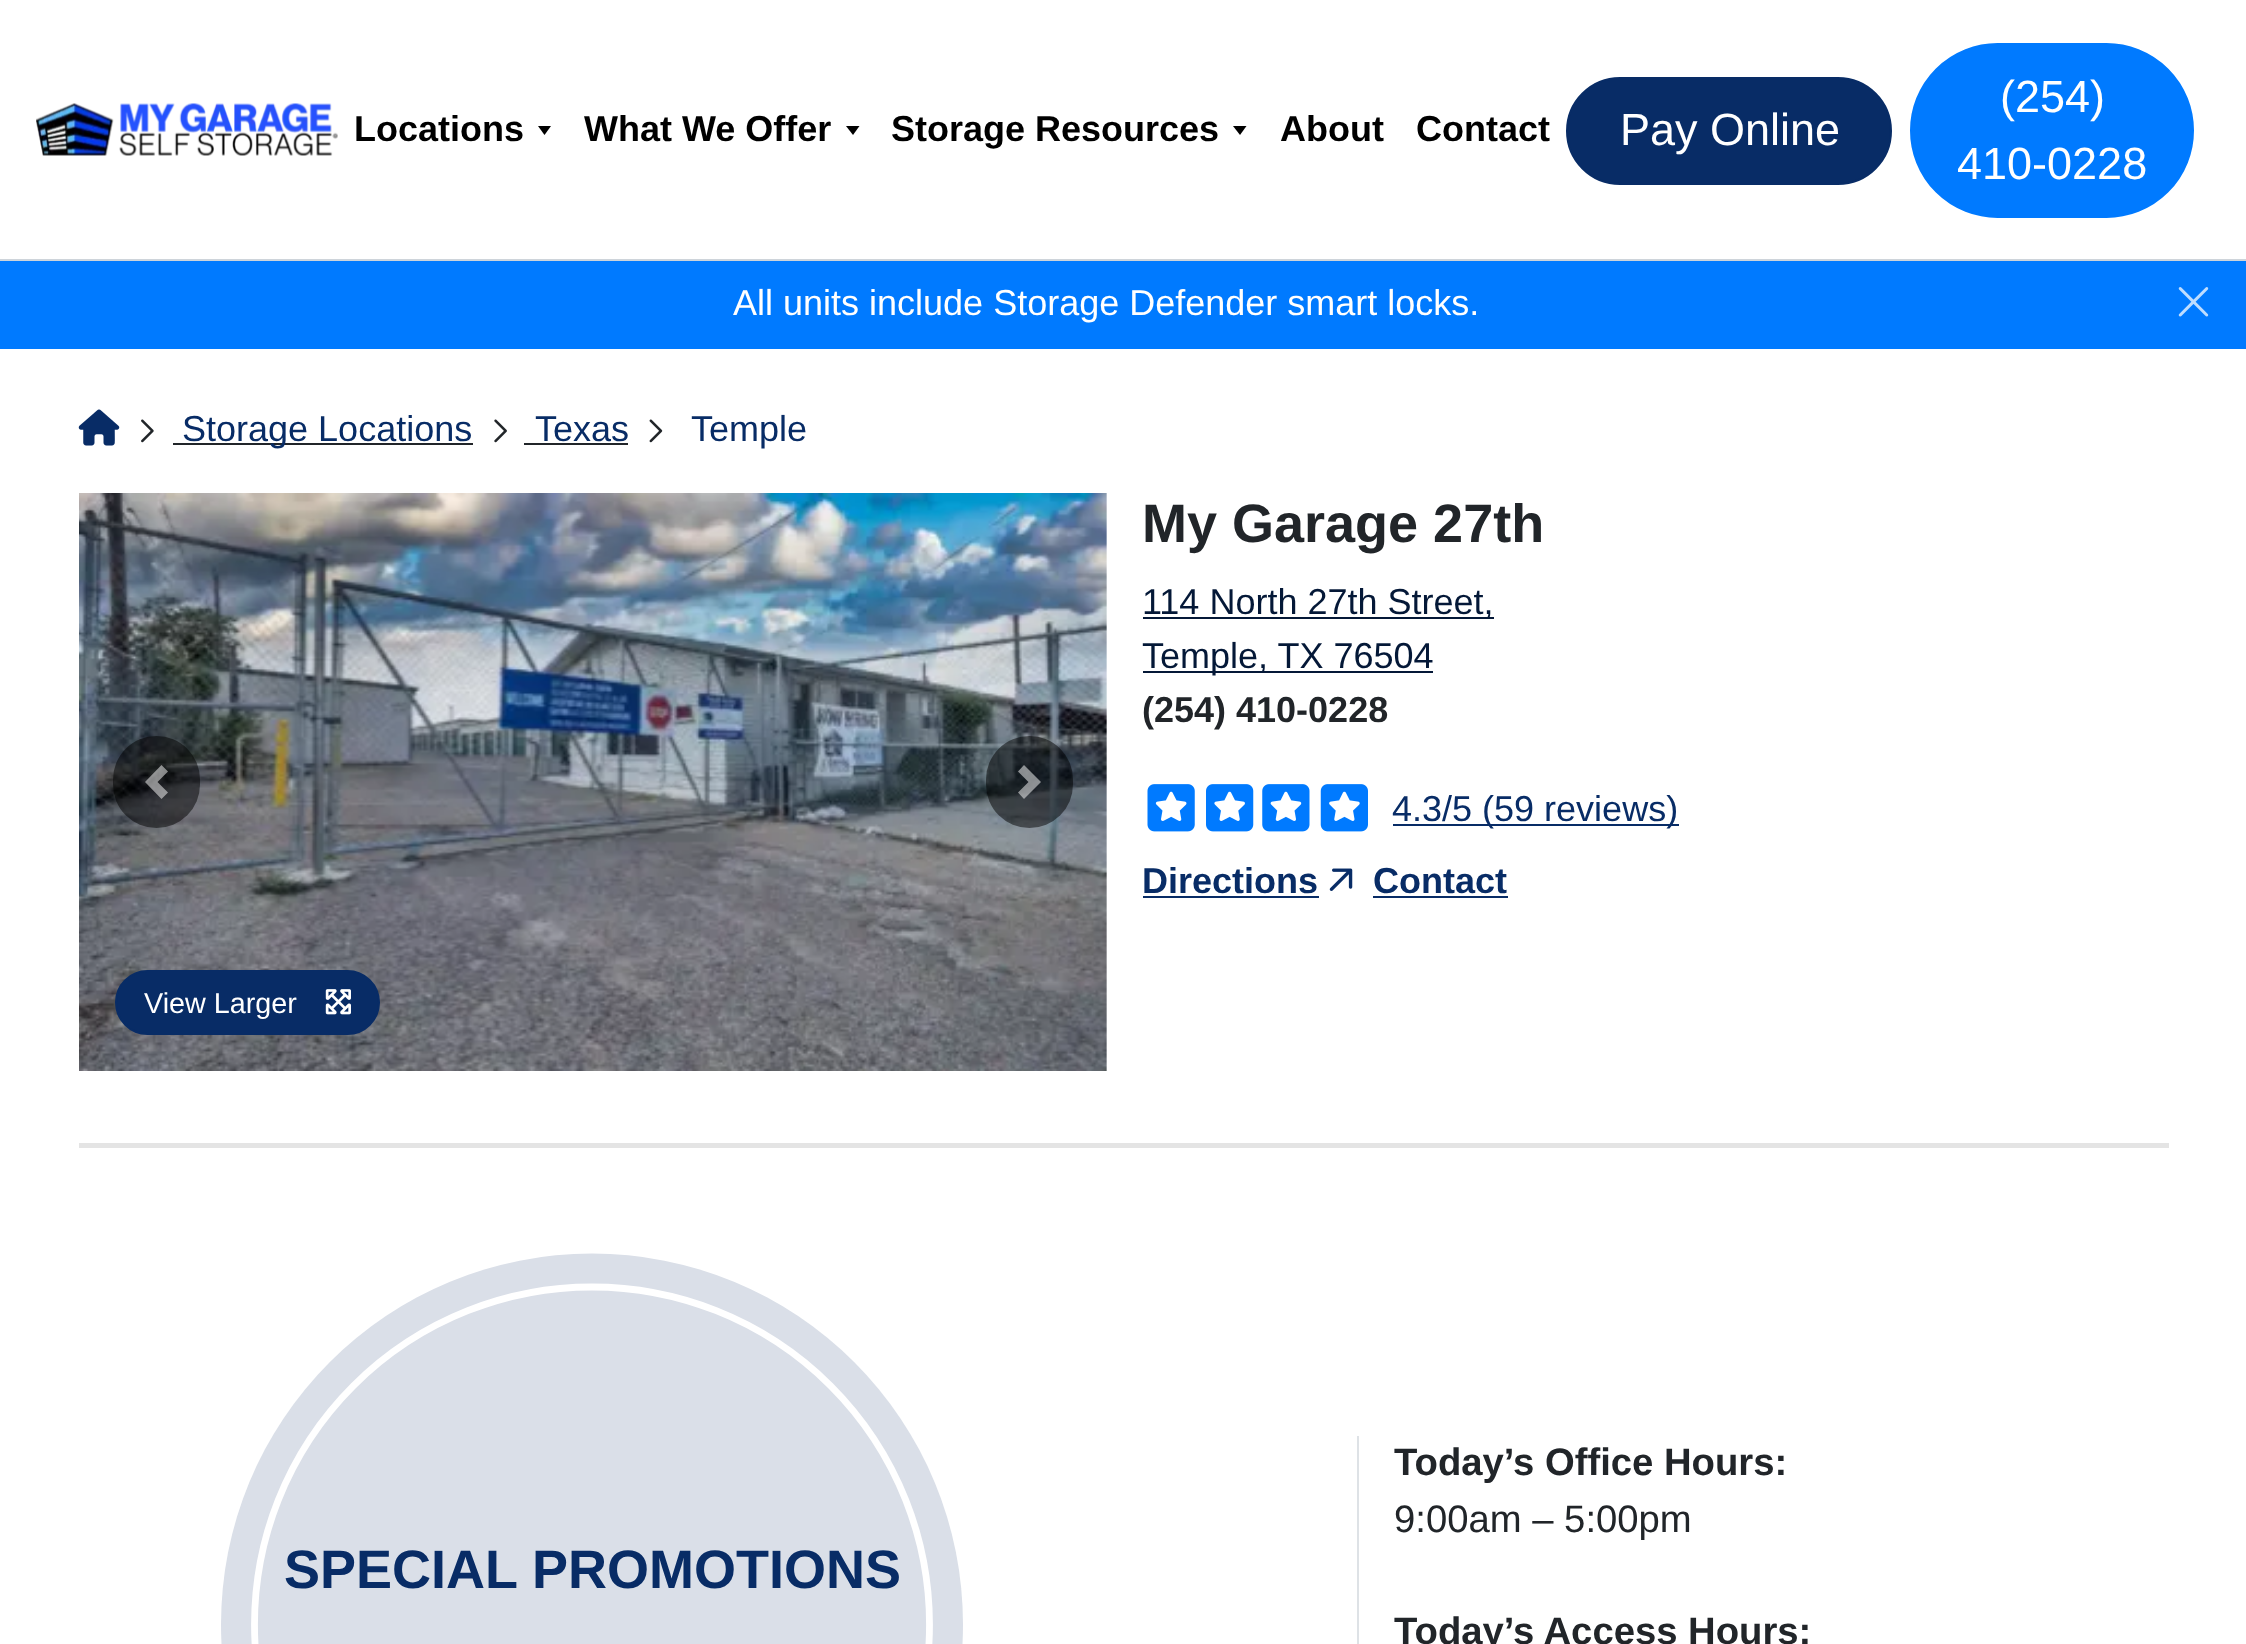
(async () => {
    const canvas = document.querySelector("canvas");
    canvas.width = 2246;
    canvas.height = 1644;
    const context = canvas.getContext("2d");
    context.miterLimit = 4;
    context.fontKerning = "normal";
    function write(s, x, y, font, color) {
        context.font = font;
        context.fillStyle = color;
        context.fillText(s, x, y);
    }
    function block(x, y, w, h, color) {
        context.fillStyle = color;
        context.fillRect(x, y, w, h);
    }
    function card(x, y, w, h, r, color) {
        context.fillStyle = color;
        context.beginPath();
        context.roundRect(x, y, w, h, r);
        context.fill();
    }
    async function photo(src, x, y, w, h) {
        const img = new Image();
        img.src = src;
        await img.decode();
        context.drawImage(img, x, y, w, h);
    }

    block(0, 0, 2246, 1644, "rgb(255, 255, 255)");
    block(0, 259, 2246, 2, "rgb(206, 212, 218)");
    await photo("media/1.png", 36, 103, 302, 53);
    write("Locations", 354, 141, "bold 36px Liberation Sans", "rgb(0, 0, 0)");
    context.beginPath();
    context.moveTo(538, 126);
    context.lineTo(551, 126);
    context.lineTo(544.5, 135);
    context.closePath();
    context.fill();
    write("What We Offer", 584, 141, "bold 36px Liberation Sans", "rgb(0, 0, 0)");
    context.beginPath();
    context.moveTo(846, 126);
    context.lineTo(859.5, 126);
    context.lineTo(853, 135);
    context.closePath();
    context.fill();
    write("Storage Resources", 891, 141, "bold 36px Liberation Sans", "rgb(0, 0, 0)");
    context.beginPath();
    context.moveTo(1233, 126);
    context.lineTo(1246.5, 126);
    context.lineTo(1240, 135);
    context.closePath();
    context.fill();
    write("About", 1280, 141, "bold 36px Liberation Sans", "rgb(0, 0, 0)");
    write("Contact", 1416, 141, "bold 36px Liberation Sans", "rgb(0, 0, 0)");
    context.fillStyle = "rgb(8, 44, 102)";
    context.beginPath();
    context.roundRect(1567, 78, 324, 106, 53);
    context.fill();
    context.strokeStyle = "rgb(8, 44, 102)";
    context.lineWidth = 2;
    context.stroke();
    write("Pay Online", 1620, 145, "45px Liberation Sans", "rgb(255, 255, 255)");
    context.fillStyle = "rgb(0, 122, 255)";
    context.beginPath();
    context.roundRect(1911, 44, 282, 173, 86.5);
    context.fill();
    context.strokeStyle = "rgb(0, 122, 255)";
    context.stroke();
    write("(254)", 2000, 112, "45px Liberation Sans", "rgb(255, 255, 255)");
    write("410-0228", 1957, 179, "45px Liberation Sans", "rgb(255, 255, 255)");
    block(0, 261, 2246, 88, "rgb(0, 122, 255)");
    write("All units include Storage Defender smart locks.", 733, 315, "36px Liberation Sans", "rgb(255, 255, 255)");
    await photo("media/2.png", 2178, 287, 31, 30);
    await photo("media/3.png", 78, 409, 42, 37);
    await photo("media/4.png", 141, 419, 13, 24);
    block(173, 443, 300, 2, "rgb(33, 37, 41)");
    write("Storage Locations", 182, 441, "36px Liberation Sans", "rgb(8, 44, 102)");
    await photo("media/5.png", 494, 419, 13, 24);
    write("Texas", 535, 441, "36px Liberation Sans", "rgb(8, 44, 102)");
    block(524, 443, 104, 2, "rgb(33, 37, 41)");
    await photo("media/6.png", 649, 419, 14, 24);
    write("Temple", 691, 441, "36px Liberation Sans", "rgb(8, 44, 102)");
    block(79, 1143, 2090, 5, "rgb(228, 228, 228)");
    write("My Garage 27th", 1142, 542, "bold 54px Liberation Sans", "rgb(33, 37, 41)");
    block(1143, 617, 351, 2, "rgb(4, 24, 55)");
    write("114 North 27th Street,", 1142, 614, "36px Liberation Sans", "rgb(4, 24, 55)");
    block(1143, 671, 290, 2, "rgb(4, 24, 55)");
    write("Temple, TX 76504", 1142, 668, "36px Liberation Sans", "rgb(4, 24, 55)");
    write("(254) 410-0228", 1142, 722, "bold 36px Liberation Sans", "rgb(33, 37, 41)");
    await photo("media/7.png", 1147, 784, 48, 48);
    await photo("media/8.png", 1206, 784, 48, 48);
    await photo("media/9.png", 1262, 784, 48, 48);
    await photo("media/10.png", 1320, 784, 48, 48);
    block(1393, 824, 286, 2, "rgb(8, 44, 102)");
    write("4.3/5 (59 reviews)", 1392, 821, "36px Liberation Sans", "rgb(8, 44, 102)");
    write("Directions", 1142, 893, "bold 36px Liberation Sans", "rgb(8, 44, 102)");
    block(1143, 896, 176, 2, "rgb(8, 44, 102)");
    await photo("media/11.png", 1329, 868, 24, 23);
    write("Contact", 1373, 893, "bold 36px Liberation Sans", "rgb(8, 44, 102)");
    block(1373, 896, 135, 2, "rgb(8, 44, 102)");
    await photo("media/12.png", 79, 493, 1028, 578);
    card(113, 736, 87, 92, 43.5, "rgba(0, 0, 0, 0.5)");
    context.fillStyle = "rgba(255, 255, 255, 0.5)";
    context.beginPath();
    context.moveTo(161.5, 765);
    context.lineTo(145, 782);
    context.lineTo(161.5, 799);
    context.lineTo(168, 792.5);
    context.lineTo(157.5, 782);
    context.lineTo(168, 771.5);
    context.closePath();
    context.fill();
    card(986, 736, 87, 92, 43.5, "rgba(0, 0, 0, 0.5)");
    context.fillStyle = "rgba(255, 255, 255, 0.5)";
    context.beginPath();
    context.moveTo(1024, 765);
    context.lineTo(1018, 771.5);
    context.lineTo(1028.5, 782);
    context.lineTo(1018, 792.5);
    context.lineTo(1024, 799);
    context.lineTo(1041, 782);
    context.closePath();
    context.fill();
    context.fillStyle = "rgb(8, 44, 102)";
    context.beginPath();
    context.roundRect(116, 971, 263, 63, 31.5);
    context.fill();
    context.strokeStyle = "rgb(8, 44, 102)";
    context.stroke();
    write("View Larger", 144, 1013, "28.75px Liberation Sans", "rgb(255, 255, 255)");
    await photo("media/13.png", 325, 989, 26, 26);
    context.fillStyle = "rgb(218, 223, 232)";
    context.beginPath();
    context.arc(592, 1624.5, 371, 0, Math.PI * 2);
    context.fill();
    context.beginPath();
    context.arc(592, 1624.5, 337.5, 0, Math.PI * 2);
    context.strokeStyle = "rgb(255, 255, 255)";
    context.lineWidth = 6.8;
    context.stroke();
    write("SPECIAL PROMOTIONS", 284, 1588, "bold 54px Liberation Sans", "rgb(8, 44, 102)");
    block(1357, 1436, 2, 208, "rgb(222, 226, 230)");
    write("Today’s Office Hours:", 1394, 1475, "bold 38.25px Liberation Sans", "rgb(33, 37, 41)");
    write("9:00am – 5:00pm", 1394, 1532, "38.25px Liberation Sans", "rgb(33, 37, 41)");
    write("Today’s Access Hours:", 1394, 1644, "bold 38.25px Liberation Sans", "rgb(33, 37, 41)");
})();
